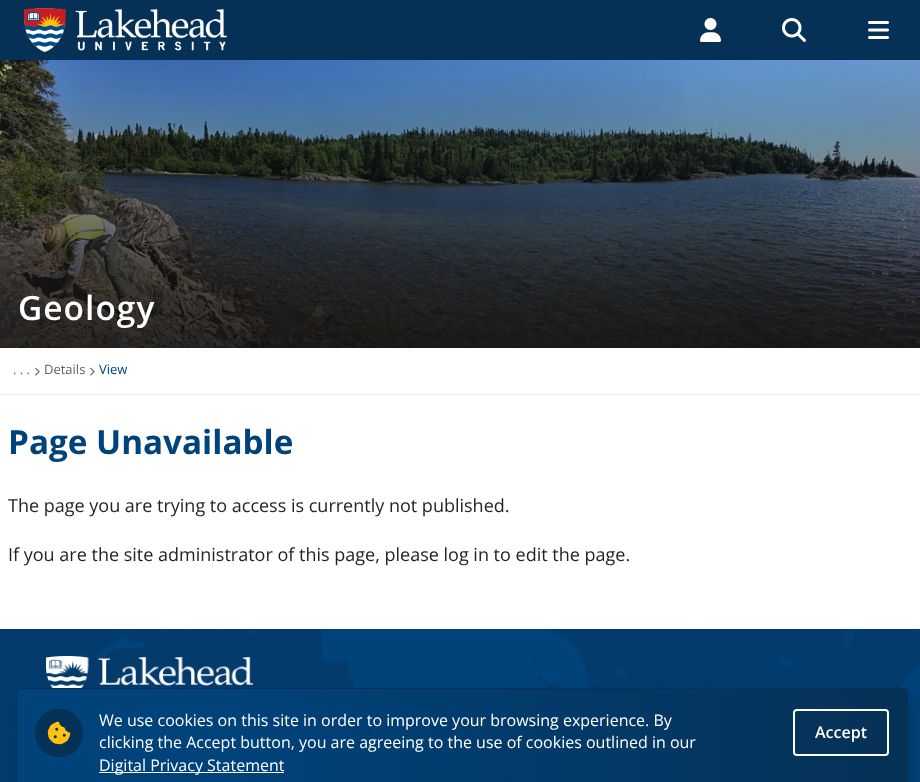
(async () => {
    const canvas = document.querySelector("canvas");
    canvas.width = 920;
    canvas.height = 782;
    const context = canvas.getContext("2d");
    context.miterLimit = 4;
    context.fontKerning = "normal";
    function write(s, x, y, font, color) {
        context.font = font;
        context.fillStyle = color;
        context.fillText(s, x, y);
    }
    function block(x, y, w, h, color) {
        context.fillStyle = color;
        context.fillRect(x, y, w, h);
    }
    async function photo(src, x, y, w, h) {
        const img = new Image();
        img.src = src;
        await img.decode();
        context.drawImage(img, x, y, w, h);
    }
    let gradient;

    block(0, 0, 920, 782, "rgb(255, 255, 255)");
    block(0, 0, 920, 60, "rgb(6, 49, 86)");
    await photo("media/1.png", 24, 8, 203, 44);
    await photo("media/2.png", 700, 18, 21, 24);
    await photo("media/3.png", 782, 18, 24, 24);
    await photo("media/4.png", 868, 21, 21, 18);
    await photo("media/5.png", 0, 60, 920, 288);
    context.letterSpacing = "1px";
    write("Geology", 18, 320, "600 33.5px Open Sans", "rgb(255, 255, 255)");
    block(0, 394, 920, 1, "rgb(234, 234, 234)");
    context.letterSpacing = "0px";
    write(". . .", 13, 374, "13px Open Sans", "rgb(97, 98, 101)");
    await photo("media/6.png", 35, 367, 5, 9);
    write("Details", 44, 374, "13px Open Sans", "rgb(97, 98, 101)");
    await photo("media/6.png", 90, 367, 5, 9);
    write("View", 99, 374, "13px Open Sans", "rgb(0, 66, 122)");
    write("Page Unavailable", 8, 454, "bold 33.25px Open Sans", "rgb(0, 66, 122)");
    write("The page you are trying to access is currently not published.", 8, 512, "18px Open Sans", "rgb(36, 36, 36)");
    write("If you are the site administrator of this page, please log in to edit the page.", 8, 561, "18px Open Sans", "rgb(36, 36, 36)");
    block(8, 629, 912, 153, "rgb(0, 66, 122)");
    await photo("media/7.png", 0, 629, 920, 153);
    await photo("media/8.png", 46, 656, 207, 32);
    context.fillStyle = "rgba(0, 0, 0, 0.13)";
    context.filter = "blur(6.5px)";
    context.beginPath();
    context.roundRect(24, 696, 892, 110, 5);
    context.fill();
    context.filter = "none";
    gradient = context.createLinearGradient(17, 744, 907, 742);
    gradient.addColorStop(0.24, "rgb(0, 66, 122)");
    gradient.addColorStop(1, "rgb(6, 49, 86)");
    context.fillStyle = gradient;
    context.fillRect(17, 689, 890, 93);
    context.beginPath();
    context.roundRect(16.5, 688.5, 891, 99, 4.5);
    context.strokeStyle = "rgb(6, 49, 86)";
    context.stroke();
    context.fillStyle = "rgb(6, 49, 86)";
    context.beginPath();
    context.arc(59, 733, 24, 0, Math.PI * 2);
    context.fill();
    await photo("media/9.png", 47, 721, 24, 24);
    write("We use cookies on this site in order to improve your browsing experience. By", 99, 726, "16px Open Sans", "rgb(255, 255, 255)");
    write("clicking the Accept button, you are agreeing to the use of cookies outlined in our", 99, 748, "16px Open Sans", "rgb(255, 255, 255)");
    block(99, 772, 185, 1, "rgb(255, 255, 255)");
    write("Digital Privacy Statement", 99, 771, "16px Open Sans", "rgb(255, 255, 255)");
    context.beginPath();
    context.roundRect(794, 710, 94, 45, 3);
    context.strokeStyle = "rgb(255, 255, 255)";
    context.lineWidth = 2;
    context.stroke();
    write("Accept", 815, 738, "600 16px Open Sans", "rgb(255, 255, 255)");
})();
